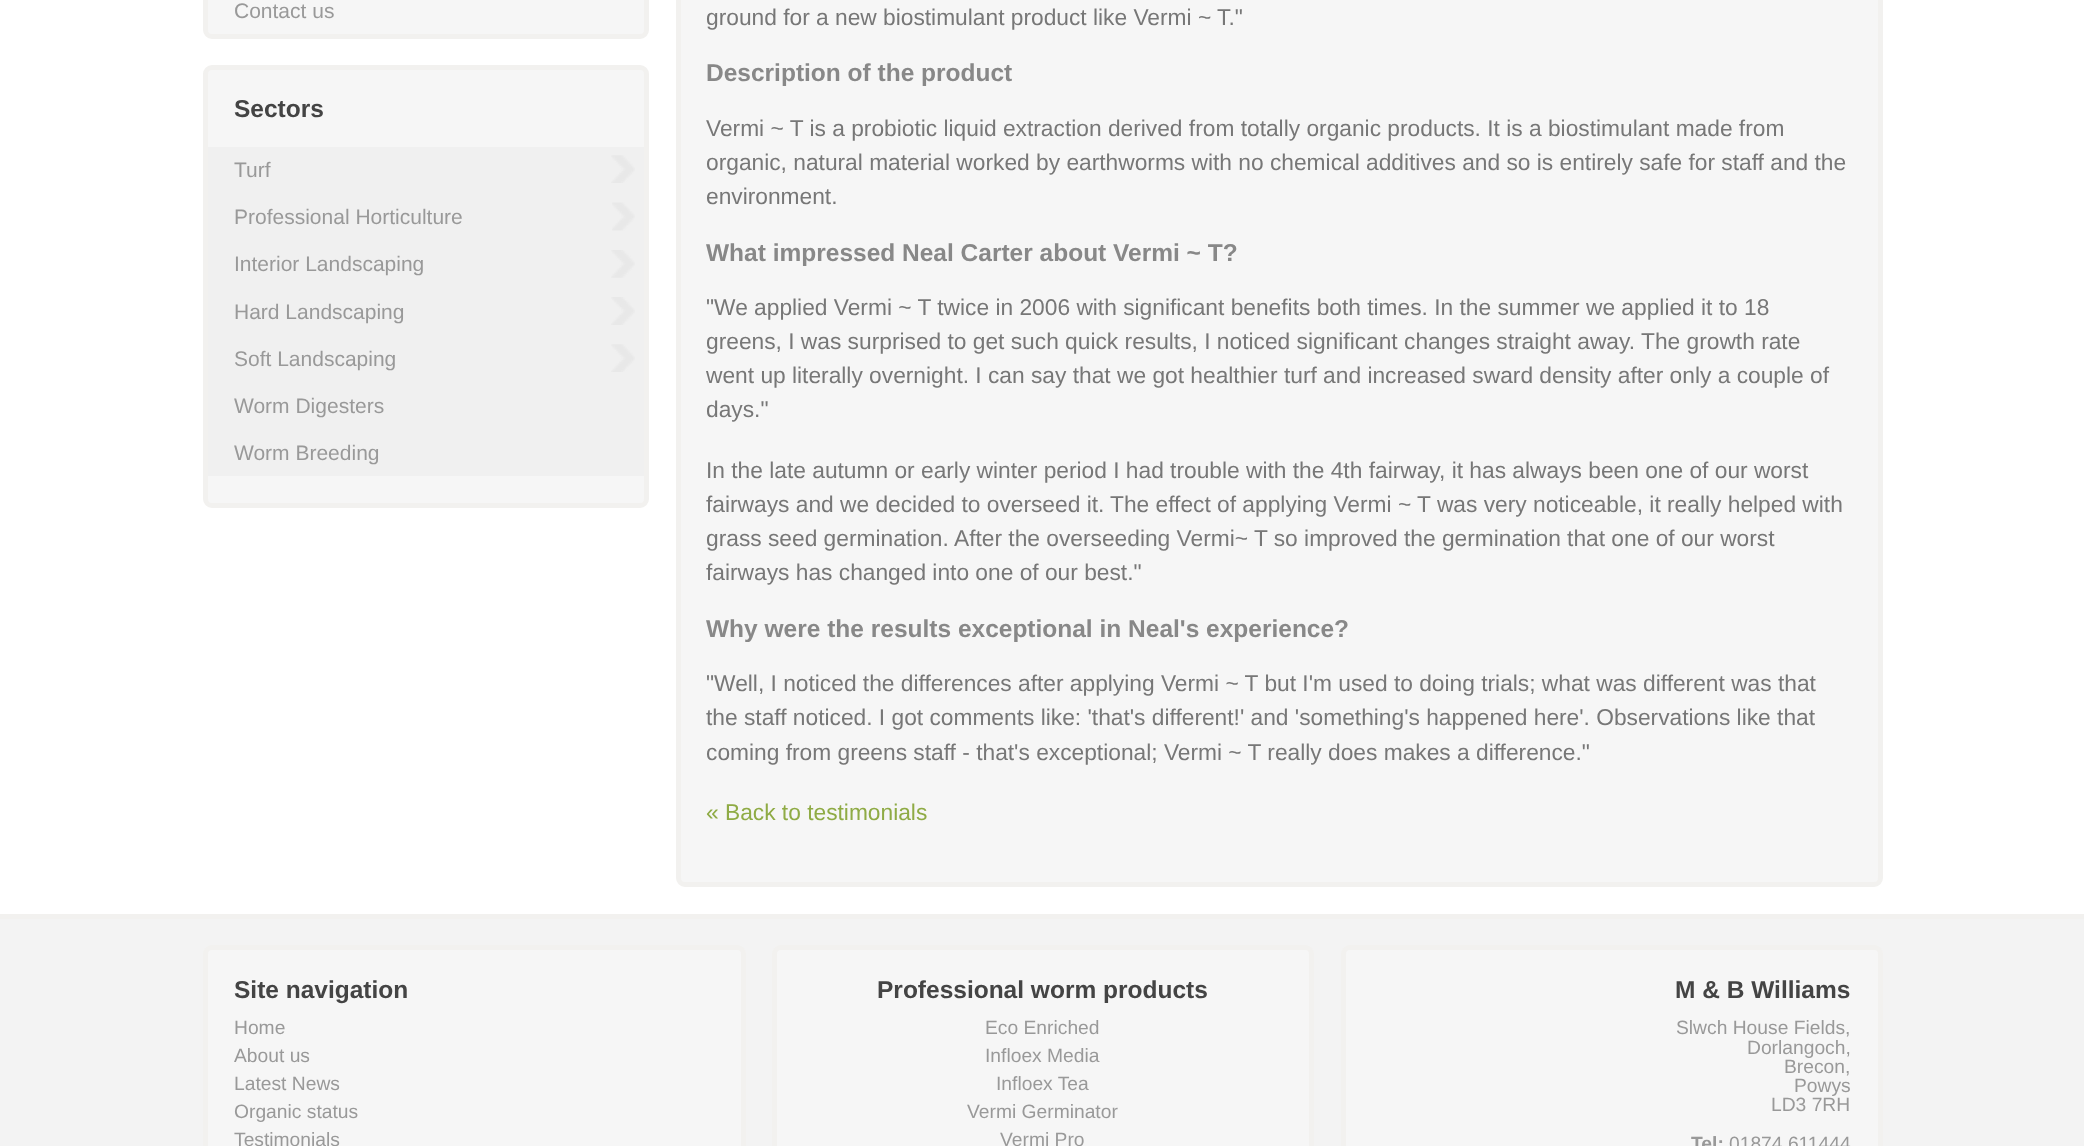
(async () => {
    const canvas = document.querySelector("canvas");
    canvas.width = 2084;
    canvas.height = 1146;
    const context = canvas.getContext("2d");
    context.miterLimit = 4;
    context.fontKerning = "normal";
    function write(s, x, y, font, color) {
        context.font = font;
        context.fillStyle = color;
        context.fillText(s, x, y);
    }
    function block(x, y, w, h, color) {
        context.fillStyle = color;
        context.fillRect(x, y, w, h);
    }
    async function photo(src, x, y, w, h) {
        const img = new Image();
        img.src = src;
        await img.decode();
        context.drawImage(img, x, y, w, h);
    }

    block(0, 0, 2084, 1146, "rgb(255, 255, 255)");
    context.fillStyle = "rgb(246, 246, 246)";
    context.beginPath();
    context.roundRect(205.5, -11.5, 441, 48, 6.5);
    context.fill();
    context.strokeStyle = "rgb(242, 241, 239)";
    context.lineWidth = 5;
    context.stroke();
    write("Contact us", 234, 18, "21px Liberation Sans", "rgb(153, 153, 153)");
    context.fillStyle = "rgb(246, 246, 246)";
    context.beginPath();
    context.roundRect(205.5, 67.5, 441, 438, 6.5);
    context.fill();
    context.stroke();
    write("Sectors", 234, 117, "bold 24.5px Liberation Sans", "rgb(68, 68, 68)");
    block(208, 147, 436, 329, "rgb(240, 240, 240)");
    await photo("media/1.png", 611, 155, 24, 28);
    write("Turf", 234, 177, "21px Liberation Sans", "rgb(153, 153, 153)");
    await photo("media/2.png", 612, 202, 23, 29);
    write("Professional Horticulture", 234, 224, "21px Liberation Sans", "rgb(153, 153, 153)");
    await photo("media/3.png", 611, 250, 24, 28);
    write("Interior Landscaping", 234, 271, "21px Liberation Sans", "rgb(153, 153, 153)");
    await photo("media/4.png", 611, 297, 24, 28);
    write("Hard Landscaping", 234, 319, "21px Liberation Sans", "rgb(153, 153, 153)");
    await photo("media/1.png", 611, 344, 24, 28);
    write("Soft Landscaping", 234, 366, "21px Liberation Sans", "rgb(153, 153, 153)");
    write("Worm Digesters", 234, 413, "21px Liberation Sans", "rgb(153, 153, 153)");
    write("Worm Breeding", 234, 460, "21px Liberation Sans", "rgb(153, 153, 153)");
    context.fillStyle = "rgb(246, 246, 246)";
    context.beginPath();
    context.roundRect(678.5, -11.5, 1202, 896, 6.5);
    context.fill();
    context.stroke();
    write("ground for a new biostimulant product like Vermi ~ T.\"", 706, 25, "22.75px Liberation Sans", "rgb(119, 119, 119)");
    write("Description of the product", 706, 81, "bold 24.5px Liberation Sans", "rgb(136, 136, 136)");
    write("Vermi ~ T is a probiotic liquid extraction derived from totally organic products. It is a biostimulant made from", 706, 136, "22.75px Liberation Sans", "rgb(119, 119, 119)");
    write("organic, natural material worked by earthworms with no chemical additives and so is entirely safe for staff and the", 706, 170, "22.75px Liberation Sans", "rgb(119, 119, 119)");
    write("environment.", 706, 204, "22.75px Liberation Sans", "rgb(119, 119, 119)");
    write("What impressed Neal Carter about Vermi ~ T?", 706, 261, "bold 24.5px Liberation Sans", "rgb(136, 136, 136)");
    write("\"We applied Vermi ~ T twice in 2006 with significant benefits both times. In the summer we applied it to 18", 706, 315, "22.75px Liberation Sans", "rgb(119, 119, 119)");
    write("greens, I was surprised to get such quick results, I noticed significant changes straight away.", 706, 349, "22.75px Liberation Sans", "rgb(119, 119, 119)");
    write("The growth rate", 1641, 349, "22.75px Liberation Sans", "rgb(119, 119, 119)");
    write("went up literally overnight. I can say that we got healthier turf and increased sward density after only a couple of", 706, 383, "22.75px Liberation Sans", "rgb(119, 119, 119)");
    write("days.\"", 706, 417, "22.75px Liberation Sans", "rgb(119, 119, 119)");
    write("In the late autumn or early winter period I had trouble with the 4th fairway, it has always been one of our worst", 706, 478, "22.75px Liberation Sans", "rgb(119, 119, 119)");
    write("fairways and we decided to overseed it.", 706, 512, "22.75px Liberation Sans", "rgb(119, 119, 119)");
    write("The effect of applying Vermi ~ T was very noticeable, it really helped with", 1110, 512, "22.75px Liberation Sans", "rgb(119, 119, 119)");
    write("grass seed germination.", 706, 546, "22.75px Liberation Sans", "rgb(119, 119, 119)");
    write("After the overseeding Vermi~ T so improved the germination that one of our worst", 954, 546, "22.75px Liberation Sans", "rgb(119, 119, 119)");
    write("fairways has changed into one of our best.\"", 706, 580, "22.75px Liberation Sans", "rgb(119, 119, 119)");
    write("Why were the results exceptional in Neal's experience?", 706, 637, "bold 24.5px Liberation Sans", "rgb(136, 136, 136)");
    write("\"Well, I noticed the differences after applying Vermi ~ T but I'm used to doing trials; what was different was that", 706, 691, "22.75px Liberation Sans", "rgb(119, 119, 119)");
    write("the staff noticed. I got comments like: 'that's different!' and 'something's happened here'. Observations like that", 706, 725, "22.75px Liberation Sans", "rgb(119, 119, 119)");
    write("coming from greens staff - that's exceptional; Vermi ~ T really does makes a difference.\"", 706, 760, "22.75px Liberation Sans", "rgb(119, 119, 119)");
    write("« Back to testimonials", 706, 820, "22.75px Liberation Sans", "rgb(143, 171, 69)");
    block(0, 919, 2084, 227, "rgb(243, 243, 243)");
    block(0, 914, 2084, 5, "rgb(242, 241, 239)");
    context.fillStyle = "rgb(246, 246, 246)";
    context.beginPath();
    context.roundRect(205.5, 947.5, 538, 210, 6.5);
    context.fill();
    context.stroke();
    write("Site navigation", 234, 998, "bold 24.5px Liberation Sans", "rgb(68, 68, 68)");
    write("Home", 234, 1034, "19.25px Liberation Sans", "rgb(153, 153, 153)");
    write("About us", 234, 1062, "19.25px Liberation Sans", "rgb(153, 153, 153)");
    write("Latest News", 234, 1090, "19.25px Liberation Sans", "rgb(153, 153, 153)");
    write("Organic status", 234, 1118, "19.25px Liberation Sans", "rgb(153, 153, 153)");
    write("Testimonials", 234, 1146, "19.25px Liberation Sans", "rgb(153, 153, 153)");
    context.fillStyle = "rgb(246, 246, 246)";
    context.beginPath();
    context.roundRect(774.5, 947.5, 537, 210, 6.5);
    context.fill();
    context.stroke();
    write("Professional worm products", 877, 998, "bold 24.5px Liberation Sans", "rgb(68, 68, 68)");
    write("Eco Enriched", 985, 1034, "19.25px Liberation Sans", "rgb(153, 153, 153)");
    write("Infloex Media", 985, 1062, "19.25px Liberation Sans", "rgb(153, 153, 153)");
    write("Infloex Tea", 996, 1090, "19.25px Liberation Sans", "rgb(153, 153, 153)");
    write("Vermi Germinator", 967, 1118, "19.25px Liberation Sans", "rgb(153, 153, 153)");
    write("Vermi Pro", 1000, 1146, "19.25px Liberation Sans", "rgb(153, 153, 153)");
    context.fillStyle = "rgb(246, 246, 246)";
    context.beginPath();
    context.roundRect(1343.5, 947.5, 537, 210, 6.5);
    context.fill();
    context.stroke();
    write("M & B Williams", 1675, 998, "bold 24.5px Liberation Sans", "rgb(68, 68, 68)");
    write("Slwch House Fields,", 1676, 1034, "19.25px Liberation Sans", "rgb(153, 153, 153)");
    write("Dorlangoch,", 1747, 1054, "19.25px Liberation Sans", "rgb(153, 153, 153)");
    write("Brecon,", 1784, 1073, "19.25px Liberation Sans", "rgb(153, 153, 153)");
    write("Powys", 1794, 1092, "19.25px Liberation Sans", "rgb(153, 153, 153)");
    write("LD3 7RH", 1771, 1111, "19.25px Liberation Sans", "rgb(153, 153, 153)");
    write("Tel:", 1691, 1150, "bold 19.25px Liberation Sans", "rgb(153, 153, 153)");
    write("01874 611444", 1729, 1150, "19.25px Liberation Sans", "rgb(153, 153, 153)");
})();
